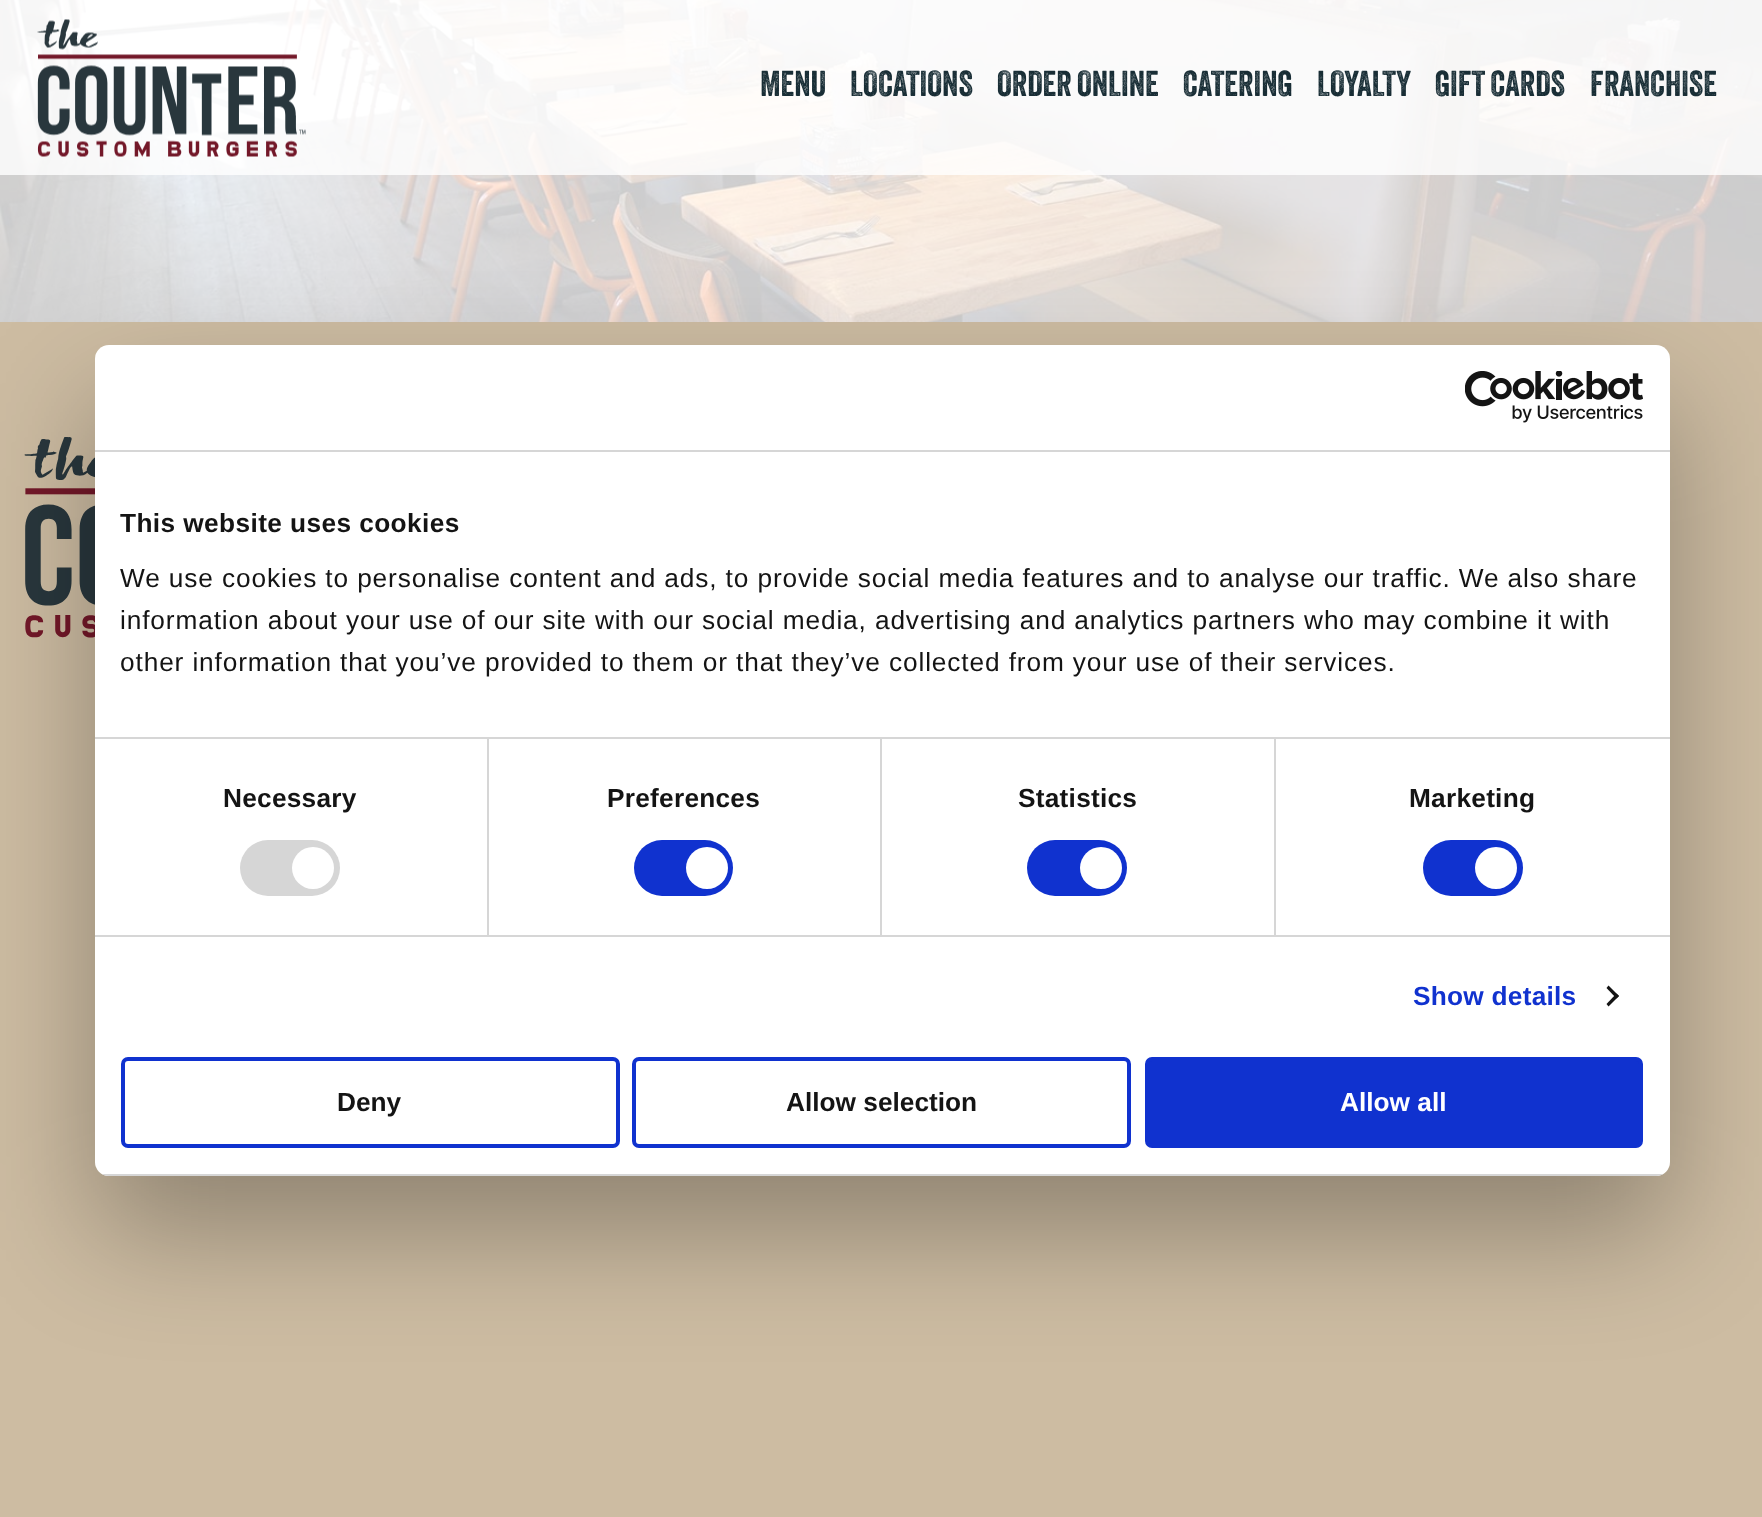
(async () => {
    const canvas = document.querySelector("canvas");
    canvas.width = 1762;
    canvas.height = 1517;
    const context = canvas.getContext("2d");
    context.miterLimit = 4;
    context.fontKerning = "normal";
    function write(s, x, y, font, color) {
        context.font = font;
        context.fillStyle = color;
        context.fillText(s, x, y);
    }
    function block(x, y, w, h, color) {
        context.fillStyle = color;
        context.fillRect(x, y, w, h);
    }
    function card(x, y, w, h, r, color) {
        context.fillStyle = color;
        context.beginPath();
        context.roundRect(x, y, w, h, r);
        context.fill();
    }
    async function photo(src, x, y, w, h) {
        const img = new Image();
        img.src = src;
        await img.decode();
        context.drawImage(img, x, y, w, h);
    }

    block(0, 0, 1762, 1517, "rgb(205, 188, 162)");
    await photo("media/1.png", 0, 0, 1762, 322);
    block(0, 0, 1762, 175, "rgba(255, 255, 255, 0.8)");
    await photo("media/2.png", 37, 19, 269, 138);
    write("MENU", 760, 96, "35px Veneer", "rgb(24, 45, 53)");
    write("LOCATIONS", 850, 96, "35px Veneer", "rgb(24, 45, 53)");
    write("ORDER ONLINE", 997, 96, "35px Veneer", "rgb(24, 45, 53)");
    write("CATERING", 1183, 96, "35px Veneer", "rgb(24, 45, 53)");
    write("LOYALTY", 1317, 96, "35px Veneer", "rgb(24, 45, 53)");
    write("GIFT CARDS", 1435, 96, "35px Veneer", "rgb(24, 45, 53)");
    write("FRANCHISE", 1590, 96, "35px Veneer", "rgb(24, 45, 53)");
    await photo("media/3.png", 24, 437, 71, 201);
    context.fillStyle = "rgba(0, 0, 0, 0.3)";
    context.filter = "blur(59.5px)";
    context.beginPath();
    context.roundRect(95, 401, 1575, 831, 14);
    context.fill();
    context.filter = "none";
    card(95, 345, 1575, 831, 14, "rgb(255, 255, 255)");
    block(95, 450, 1575, 2, "rgb(214, 214, 214)");
    await photo("media/4.png", 1465, 371, 178, 52);
    block(95, 737, 1575, 2, "rgb(214, 214, 214)");
    context.letterSpacing = "0.4px";
    write("This website uses cookies", 120, 532, "bold 26.25px Liberation Sans", "rgb(20, 20, 20)");
    context.letterSpacing = "0.88px";
    write("We use cookies to personalise content and ads, to provide social media features and to analyse our traffic. We also share", 120, 587, "26.25px Liberation Sans", "rgb(20, 20, 20)");
    write("information about your use of our site with our social media, advertising and analytics partners who may combine it with", 120, 629, "26.25px Liberation Sans", "rgb(20, 20, 20)");
    write("other information that you’ve provided to them or that they’ve collected from your use of their services.", 120, 671, "26.25px Liberation Sans", "rgb(20, 20, 20)");
    block(95, 935, 1575, 2, "rgb(214, 214, 214)");
    block(487, 739, 2, 196, "rgb(214, 214, 214)");
    context.letterSpacing = "0.25px";
    write("Necessary", 223, 807, "bold 26.25px Liberation Sans", "rgb(20, 20, 20)");
    card(240, 840, 100, 56, 28, "rgb(214, 214, 214)");
    context.fillStyle = "rgb(255, 255, 255)";
    context.beginPath();
    context.arc(313, 868, 21, 0, Math.PI * 2);
    context.fill();
    block(880, 739, 2, 196, "rgb(214, 214, 214)");
    write("Preferences", 607, 807, "bold 26.25px Liberation Sans", "rgb(20, 20, 20)");
    card(634, 840, 99, 56, 28, "rgb(16, 50, 207)");
    context.fillStyle = "rgb(255, 255, 255)";
    context.beginPath();
    context.arc(707, 868, 21, 0, Math.PI * 2);
    context.fill();
    block(1274, 739, 2, 196, "rgb(214, 214, 214)");
    write("Statistics", 1018, 807, "bold 26.25px Liberation Sans", "rgb(20, 20, 20)");
    card(1027, 840, 100, 56, 28, "rgb(16, 50, 207)");
    context.fillStyle = "rgb(255, 255, 255)";
    context.beginPath();
    context.arc(1101, 868, 21, 0, Math.PI * 2);
    context.fill();
    write("Marketing", 1409, 807, "bold 26.25px Liberation Sans", "rgb(20, 20, 20)");
    card(1423, 840, 100, 56, 28, "rgb(16, 50, 207)");
    context.fillStyle = "rgb(255, 255, 255)";
    context.beginPath();
    context.arc(1496, 868, 21, 0, Math.PI * 2);
    context.fill();
    write("Show details", 1413, 1005, "bold 26.25px Liberation Sans", "rgb(16, 50, 207)");
    context.fillStyle = "rgb(20, 20, 20)";
    context.beginPath();
    context.moveTo(1608.5, 985.5);
    context.lineTo(1619, 996);
    context.lineTo(1616.5, 998.5);
    context.lineTo(1606.5, 988);
    context.closePath();
    context.fill();
    context.beginPath();
    context.moveTo(1616.5, 993.5);
    context.lineTo(1619, 996);
    context.lineTo(1608.5, 1006.5);
    context.lineTo(1606.5, 1004);
    context.closePath();
    context.fill();
    context.save();
    context.beginPath();
    context.roundRect(95, 345, 1575, 831, 14);
    context.clip();
    block(95, 1174, 1575, 2, "rgb(214, 214, 214)");
    context.restore();
    context.beginPath();
    context.roundRect(123, 1059, 495, 87, 5);
    context.strokeStyle = "rgb(16, 50, 207)";
    context.lineWidth = 4;
    context.stroke();
    context.letterSpacing = "0px";
    write("Deny", 337, 1111, "bold 26.25px Liberation Sans", "rgb(20, 20, 20)");
    context.beginPath();
    context.roundRect(634, 1059, 495, 87, 5);
    context.stroke();
    write("Allow selection", 786, 1111, "bold 26.25px Liberation Sans", "rgb(20, 20, 20)");
    context.fillStyle = "rgb(16, 50, 207)";
    context.beginPath();
    context.roundRect(1147, 1059, 494, 87, 5);
    context.fill();
    context.stroke();
    write("Allow all", 1340, 1111, "bold 26.25px Liberation Sans", "rgb(255, 255, 255)");
})();
